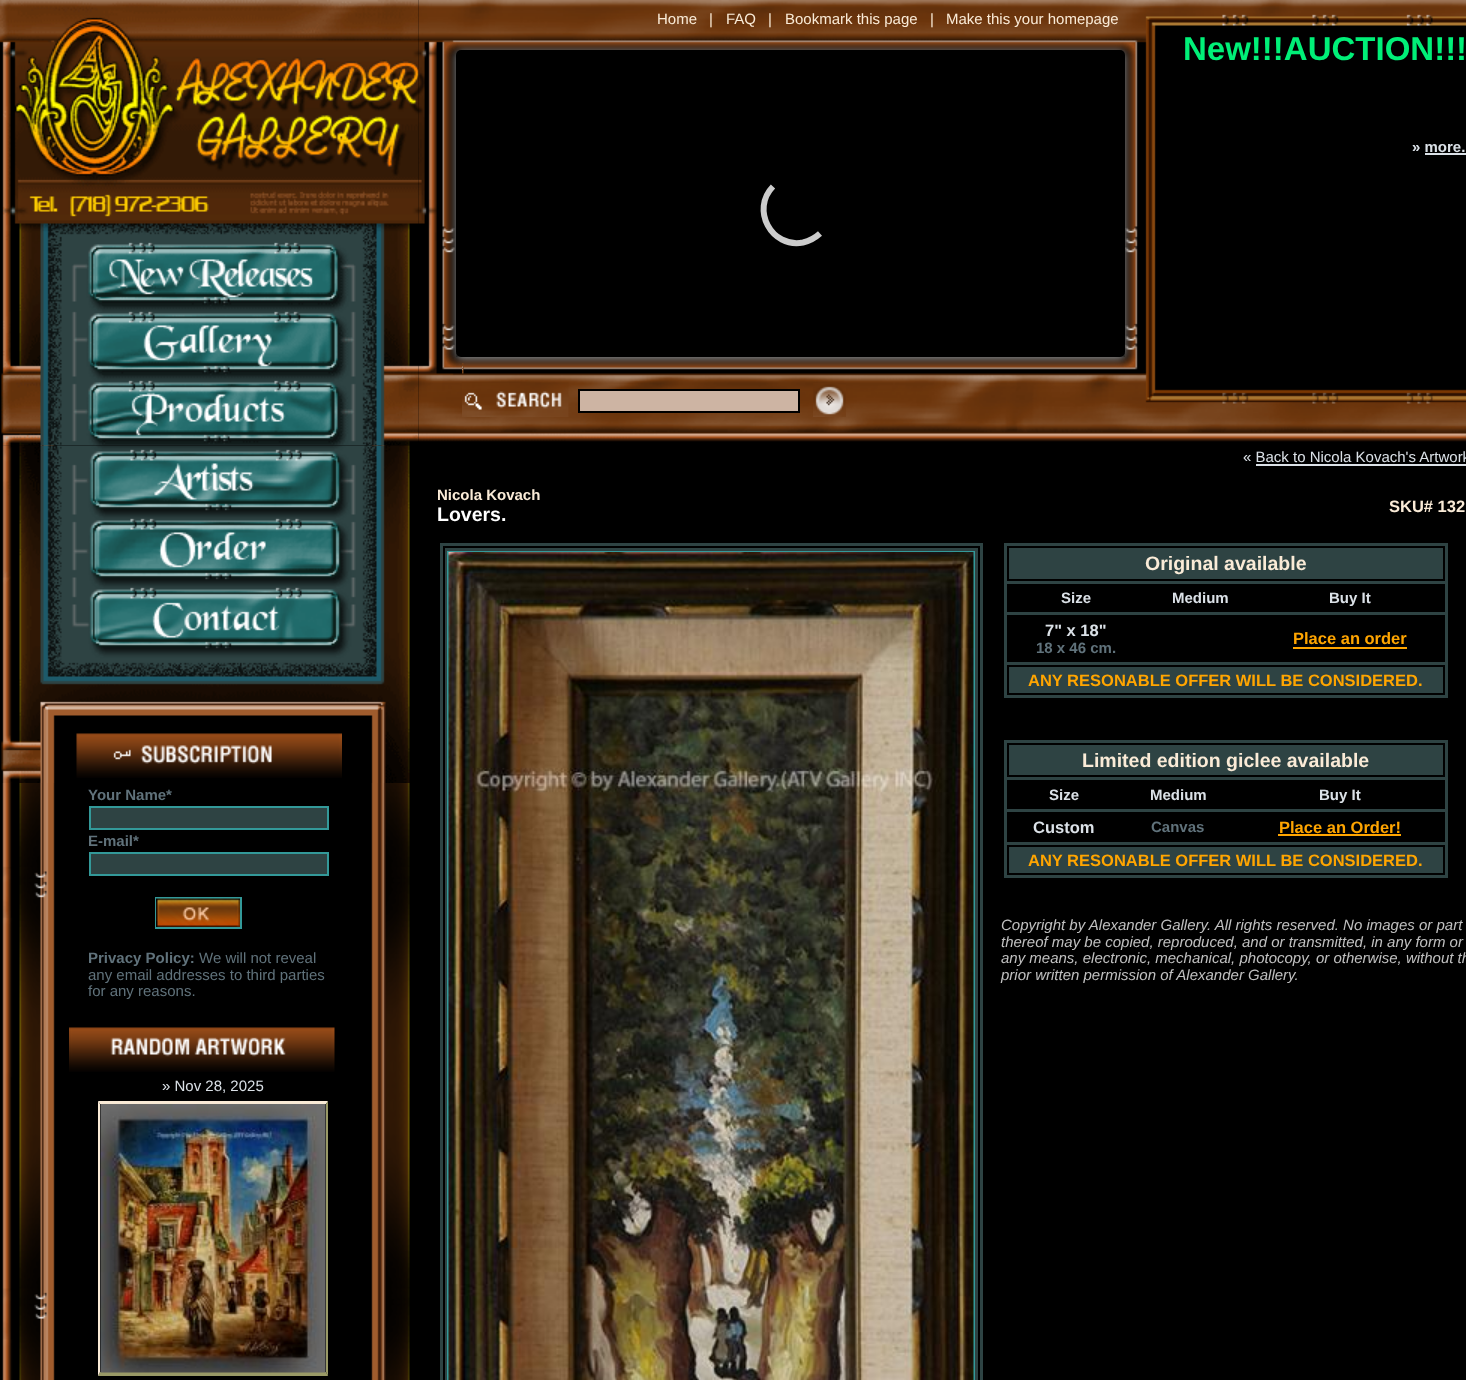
(async () => {
    const canvas = document.querySelector("canvas");
    canvas.width = 1466;
    canvas.height = 1380;
    const context = canvas.getContext("2d");
    context.miterLimit = 4;
    context.fontKerning = "normal";
    function write(s, x, y, font, color) {
        context.font = font;
        context.fillStyle = color;
        context.fillText(s, x, y);
    }
    function block(x, y, w, h, color) {
        context.fillStyle = color;
        context.fillRect(x, y, w, h);
    }
    function card(x, y, w, h, r, color) {
        context.fillStyle = color;
        context.beginPath();
        context.roundRect(x, y, w, h, r);
        context.fill();
    }
    async function photo(src, x, y, w, h) {
        const img = new Image();
        img.src = src;
        await img.decode();
        context.drawImage(img, x, y, w, h);
    }

    block(0, 0, 1466, 1380, "rgb(0, 0, 0)");
    await photo("media/1.png", 0, 0, 419, 446);
    await photo("media/2.png", 418, 0, 1048, 442);
    write("Home", 657, 24, "15px Liberation Sans", "rgb(250, 235, 215)");
    write("|", 709, 24, "15px Liberation Sans", "rgb(250, 235, 215)");
    write("FAQ", 726, 24, "15px Liberation Sans", "rgb(250, 235, 215)");
    write("|", 768, 24, "15px Liberation Sans", "rgb(250, 235, 215)");
    write("Bookmark this page", 785, 24, "15px Liberation Sans", "rgb(250, 235, 215)");
    write("|", 930, 24, "15px Liberation Sans", "rgb(250, 235, 215)");
    write("Make this your homepage", 946, 24, "15px Liberation Sans", "rgb(250, 235, 215)");
    write("New!!!AUCTION!!!", 1183, 60, "bold 33px Liberation Sans", "rgb(0, 240, 120)");
    write("» more.", 1412, 152, "bold 15px Liberation Sans", "rgb(219, 225, 231)");
    block(1425, 153, 41, 2, "rgb(219, 225, 231)");
    await photo("media/3.png", 462, 363, 2, 11);
    context.fillStyle = "rgb(153, 153, 153)";
    context.filter = "blur(4px)";
    context.beginPath();
    context.roundRect(456, 51, 669, 308, 5);
    context.fill();
    context.filter = "none";
    card(456, 50, 669, 307, 5, "rgb(0, 0, 0)");
    context.beginPath();
    context.moveTo(820, 233.5);
    context.bezierCurveTo(815, 238, 809.5, 241, 803, 242.5);
    context.bezierCurveTo(771.5, 248.5, 750.5, 209.5, 773, 186.5);
    context.strokeStyle = "rgb(204, 204, 204)";
    context.lineWidth = 6;
    context.stroke();
    block(456, 353, 669, 4, "rgba(0, 0, 0, 0.3)");
    await photo("media/4.png", 462, 382, 107, 35);
    context.fillStyle = "rgb(205, 180, 163)";
    context.beginPath();
    context.rect(579, 390, 220, 22);
    context.fill();
    context.strokeStyle = "rgb(0, 0, 0)";
    context.lineWidth = 2;
    context.stroke();
    await photo("media/5.png", 813, 383, 33, 34);
    await photo("media/6.png", 2, 445, 408, 935);
    await photo("media/7.png", 1, 445, 409, 338);
    await photo("media/8.png", 76, 733, 266, 45);
    write("Your Name*", 88, 800, "bold 15px Liberation Sans", "rgb(96, 114, 123)");
    context.fillStyle = "rgb(46, 67, 67)";
    context.beginPath();
    context.rect(90, 807, 238, 22);
    context.fill();
    context.strokeStyle = "rgb(51, 153, 153)";
    context.stroke();
    write("E-mail*", 88, 846, "bold 15px Liberation Sans", "rgb(96, 114, 123)");
    context.fillStyle = "rgb(46, 67, 67)";
    context.beginPath();
    context.rect(90, 853, 238, 22);
    context.fill();
    context.stroke();
    context.strokeRect(156, 898, 85, 30);
    await photo("media/9.png", 156, 898, 84, 29);
    write("Privacy Policy:", 88, 963, "bold 15px Liberation Sans", "rgb(96, 114, 123)");
    write("We will not reveal", 199, 963, "15px Liberation Sans", "rgb(96, 114, 123)");
    write("any email addresses to third parties", 88, 980, "15px Liberation Sans", "rgb(96, 114, 123)");
    write("for any reasons.", 88, 996, "15px Liberation Sans", "rgb(96, 114, 123)");
    await photo("media/10.png", 69, 1027, 266, 45);
    write("» Nov 28, 2025", 162, 1091, "15px Liberation Sans", "rgb(219, 225, 231)");
    context.fillStyle = "rgb(250, 235, 215)";
    context.beginPath();
    context.moveTo(98, 1101);
    context.lineTo(328, 1101);
    context.lineTo(326, 1104);
    context.lineTo(100, 1104);
    context.closePath();
    context.fill();
    context.fillStyle = "rgb(153, 153, 102)";
    context.beginPath();
    context.moveTo(328, 1101);
    context.lineTo(328, 1376);
    context.lineTo(326, 1372);
    context.lineTo(326, 1104);
    context.closePath();
    context.fill();
    context.beginPath();
    context.moveTo(328, 1376);
    context.lineTo(98, 1376);
    context.lineTo(100, 1372);
    context.lineTo(326, 1372);
    context.closePath();
    context.fill();
    context.fillStyle = "rgb(250, 235, 215)";
    context.beginPath();
    context.moveTo(98, 1376);
    context.lineTo(98, 1101);
    context.lineTo(100, 1104);
    context.lineTo(100, 1372);
    context.closePath();
    context.fill();
    await photo("media/11.png", 100, 1104, 226, 269);
    write("« Back to Nicola Kovach's Artwork", 1243, 462, "15px Liberation Sans", "rgb(219, 225, 231)");
    block(1256, 464, 210, 2, "rgb(219, 225, 231)");
    write("Nicola Kovach", 437, 500, "bold 15px Liberation Sans", "rgb(250, 235, 215)");
    write("Lovers.", 437, 521, "bold 19.5px Liberation Sans", "rgb(255, 255, 255)");
    write("SKU# 132", 1389, 512, "bold 16.5px Liberation Sans", "rgb(250, 235, 215)");
    block(440, 543, 543, 837, "rgb(46, 67, 67)");
    context.strokeStyle = "rgb(0, 0, 0)";
    context.strokeRect(444, 547, 535, 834);
    context.strokeStyle = "rgb(51, 153, 153)";
    context.strokeRect(448, 552, 526, 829);
    await photo("media/12.png", 448, 552, 526, 828);
    block(1004, 543, 444, 155, "rgb(46, 67, 67)");
    context.strokeStyle = "rgb(0, 0, 0)";
    context.strokeRect(1008, 547, 436, 33);
    write("Original available", 1145, 570, "bold 19.5px Liberation Sans", "rgb(250, 235, 215)");
    block(1007, 584, 438, 28, "rgb(0, 0, 0)");
    write("Size", 1061, 603, "bold 15px Liberation Sans", "rgb(219, 225, 231)");
    write("Medium", 1172, 603, "bold 15px Liberation Sans", "rgb(219, 225, 231)");
    write("Buy It", 1329, 603, "bold 15px Liberation Sans", "rgb(219, 225, 231)");
    block(1007, 615, 438, 47, "rgb(0, 0, 0)");
    write("7\" x 18\"", 1045, 636, "bold 16.5px Liberation Sans", "rgb(219, 225, 231)");
    write("18 x 46 cm.", 1036, 653, "bold 15px Liberation Sans", "rgb(96, 114, 123)");
    write("Place an order", 1293, 644, "bold 16.5px Liberation Sans", "rgb(255, 165, 0)");
    block(1293, 647, 114, 2, "rgb(255, 165, 0)");
    context.strokeRect(1008, 666, 436, 28);
    write("ANY RESONABLE OFFER WILL BE CONSIDERED.", 1028, 686, "bold 16.5px Liberation Sans", "rgb(255, 165, 0)");
    block(1004, 740, 444, 138, "rgb(46, 67, 67)");
    context.strokeRect(1008, 744, 436, 32);
    write("Limited edition giclee available", 1082, 767, "bold 19.5px Liberation Sans", "rgb(250, 235, 215)");
    block(1007, 780, 438, 29, "rgb(0, 0, 0)");
    write("Size", 1049, 800, "bold 15px Liberation Sans", "rgb(219, 225, 231)");
    write("Medium", 1150, 800, "bold 15px Liberation Sans", "rgb(219, 225, 231)");
    write("Buy It", 1319, 800, "bold 15px Liberation Sans", "rgb(219, 225, 231)");
    block(1007, 812, 438, 30, "rgb(0, 0, 0)");
    write("Custom", 1033, 833, "bold 16.5px Liberation Sans", "rgb(219, 225, 231)");
    write("Canvas", 1151, 832, "bold 15px Liberation Sans", "rgb(96, 114, 123)");
    write("Place an Order!", 1279, 833, "bold 16.5px Liberation Sans", "rgb(255, 165, 0)");
    block(1278, 834, 123, 2, "rgb(255, 165, 0)");
    context.strokeRect(1008, 846, 436, 28);
    write("ANY RESONABLE OFFER WILL BE CONSIDERED.", 1028, 866, "bold 16.5px Liberation Sans", "rgb(255, 165, 0)");
    write("Copyright by Alexander Gallery. All rights reserved. No images or part", 1001, 930, "italic 15px Liberation Sans", "rgb(192, 192, 192)");
    write("thereof may be copied, reproduced, and or transmitted, in any form or", 1001, 947, "italic 15px Liberation Sans", "rgb(192, 192, 192)");
    write("any means, electronic, mechanical, photocopy, or otherwise, without th", 1001, 963, "italic 15px Liberation Sans", "rgb(192, 192, 192)");
    write("prior written permission of Alexander Gallery.", 1001, 980, "italic 15px Liberation Sans", "rgb(192, 192, 192)");
})();
